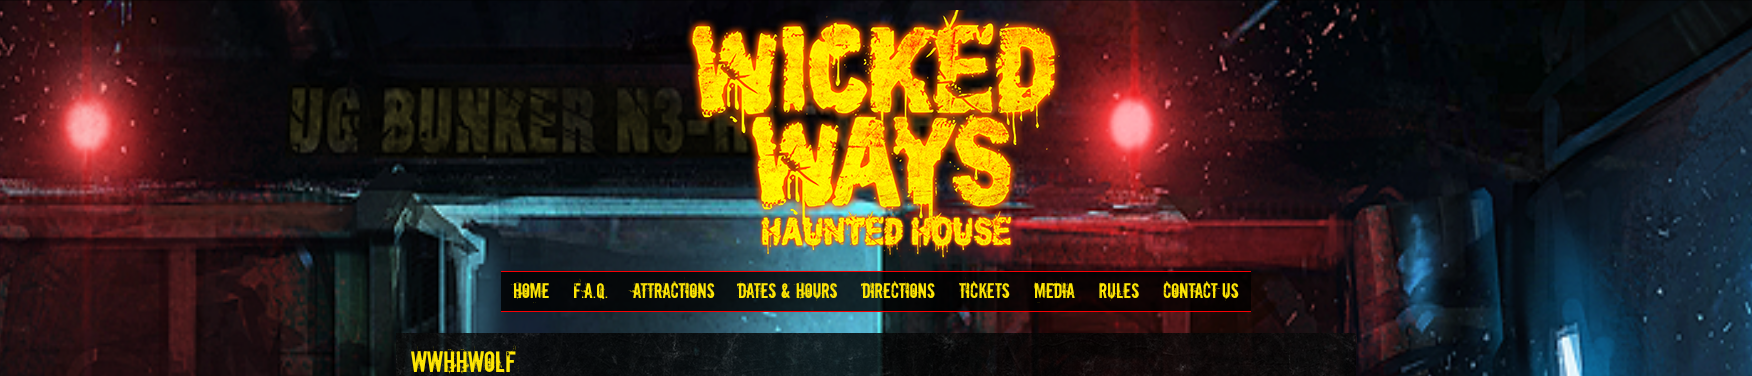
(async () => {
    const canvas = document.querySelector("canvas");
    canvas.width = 1752;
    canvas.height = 376;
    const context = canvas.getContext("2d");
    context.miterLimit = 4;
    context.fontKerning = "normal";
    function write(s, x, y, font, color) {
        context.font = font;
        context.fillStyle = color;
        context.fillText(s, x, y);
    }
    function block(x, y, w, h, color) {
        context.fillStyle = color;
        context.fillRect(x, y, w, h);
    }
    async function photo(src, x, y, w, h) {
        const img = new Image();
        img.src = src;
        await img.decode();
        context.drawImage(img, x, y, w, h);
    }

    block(0, 0, 1752, 376, "rgb(0, 0, 0)");
    await photo("media/1.png", 0, 0, 1752, 376);
    await photo("media/2.png", 685, 10, 377, 250);
    block(501, 272, 750, 39, "rgba(0, 0, 0, 0.8)");
    block(501, 271, 750, 1, "rgb(248, 0, 4)");
    block(501, 311, 750, 1, "rgb(248, 0, 4)");
    write("Home", 513, 298, "20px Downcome", "rgb(254, 230, 4)");
    write("F.A.Q.", 573, 298, "20px Downcome", "rgb(254, 230, 4)");
    write("Attractions", 633, 298, "20px Downcome", "rgb(254, 230, 4)");
    write("Dates & Hours", 738, 298, "20px Downcome", "rgb(254, 230, 4)");
    write("Directions", 862, 298, "20px Downcome", "rgb(254, 230, 4)");
    write("Tickets", 959, 298, "20px Downcome", "rgb(254, 230, 4)");
    write("Media", 1034, 298, "20px Downcome", "rgb(254, 230, 4)");
    write("Rules", 1099, 298, "20px Downcome", "rgb(254, 230, 4)");
    write("Contact Us", 1163, 298, "20px Downcome", "rgb(254, 230, 4)");
    await photo("media/3.png", 396, 333, 960, 43);
    write("wwhhwolf", 411, 372, "28px Downcome", "rgb(254, 230, 4)");
})();
